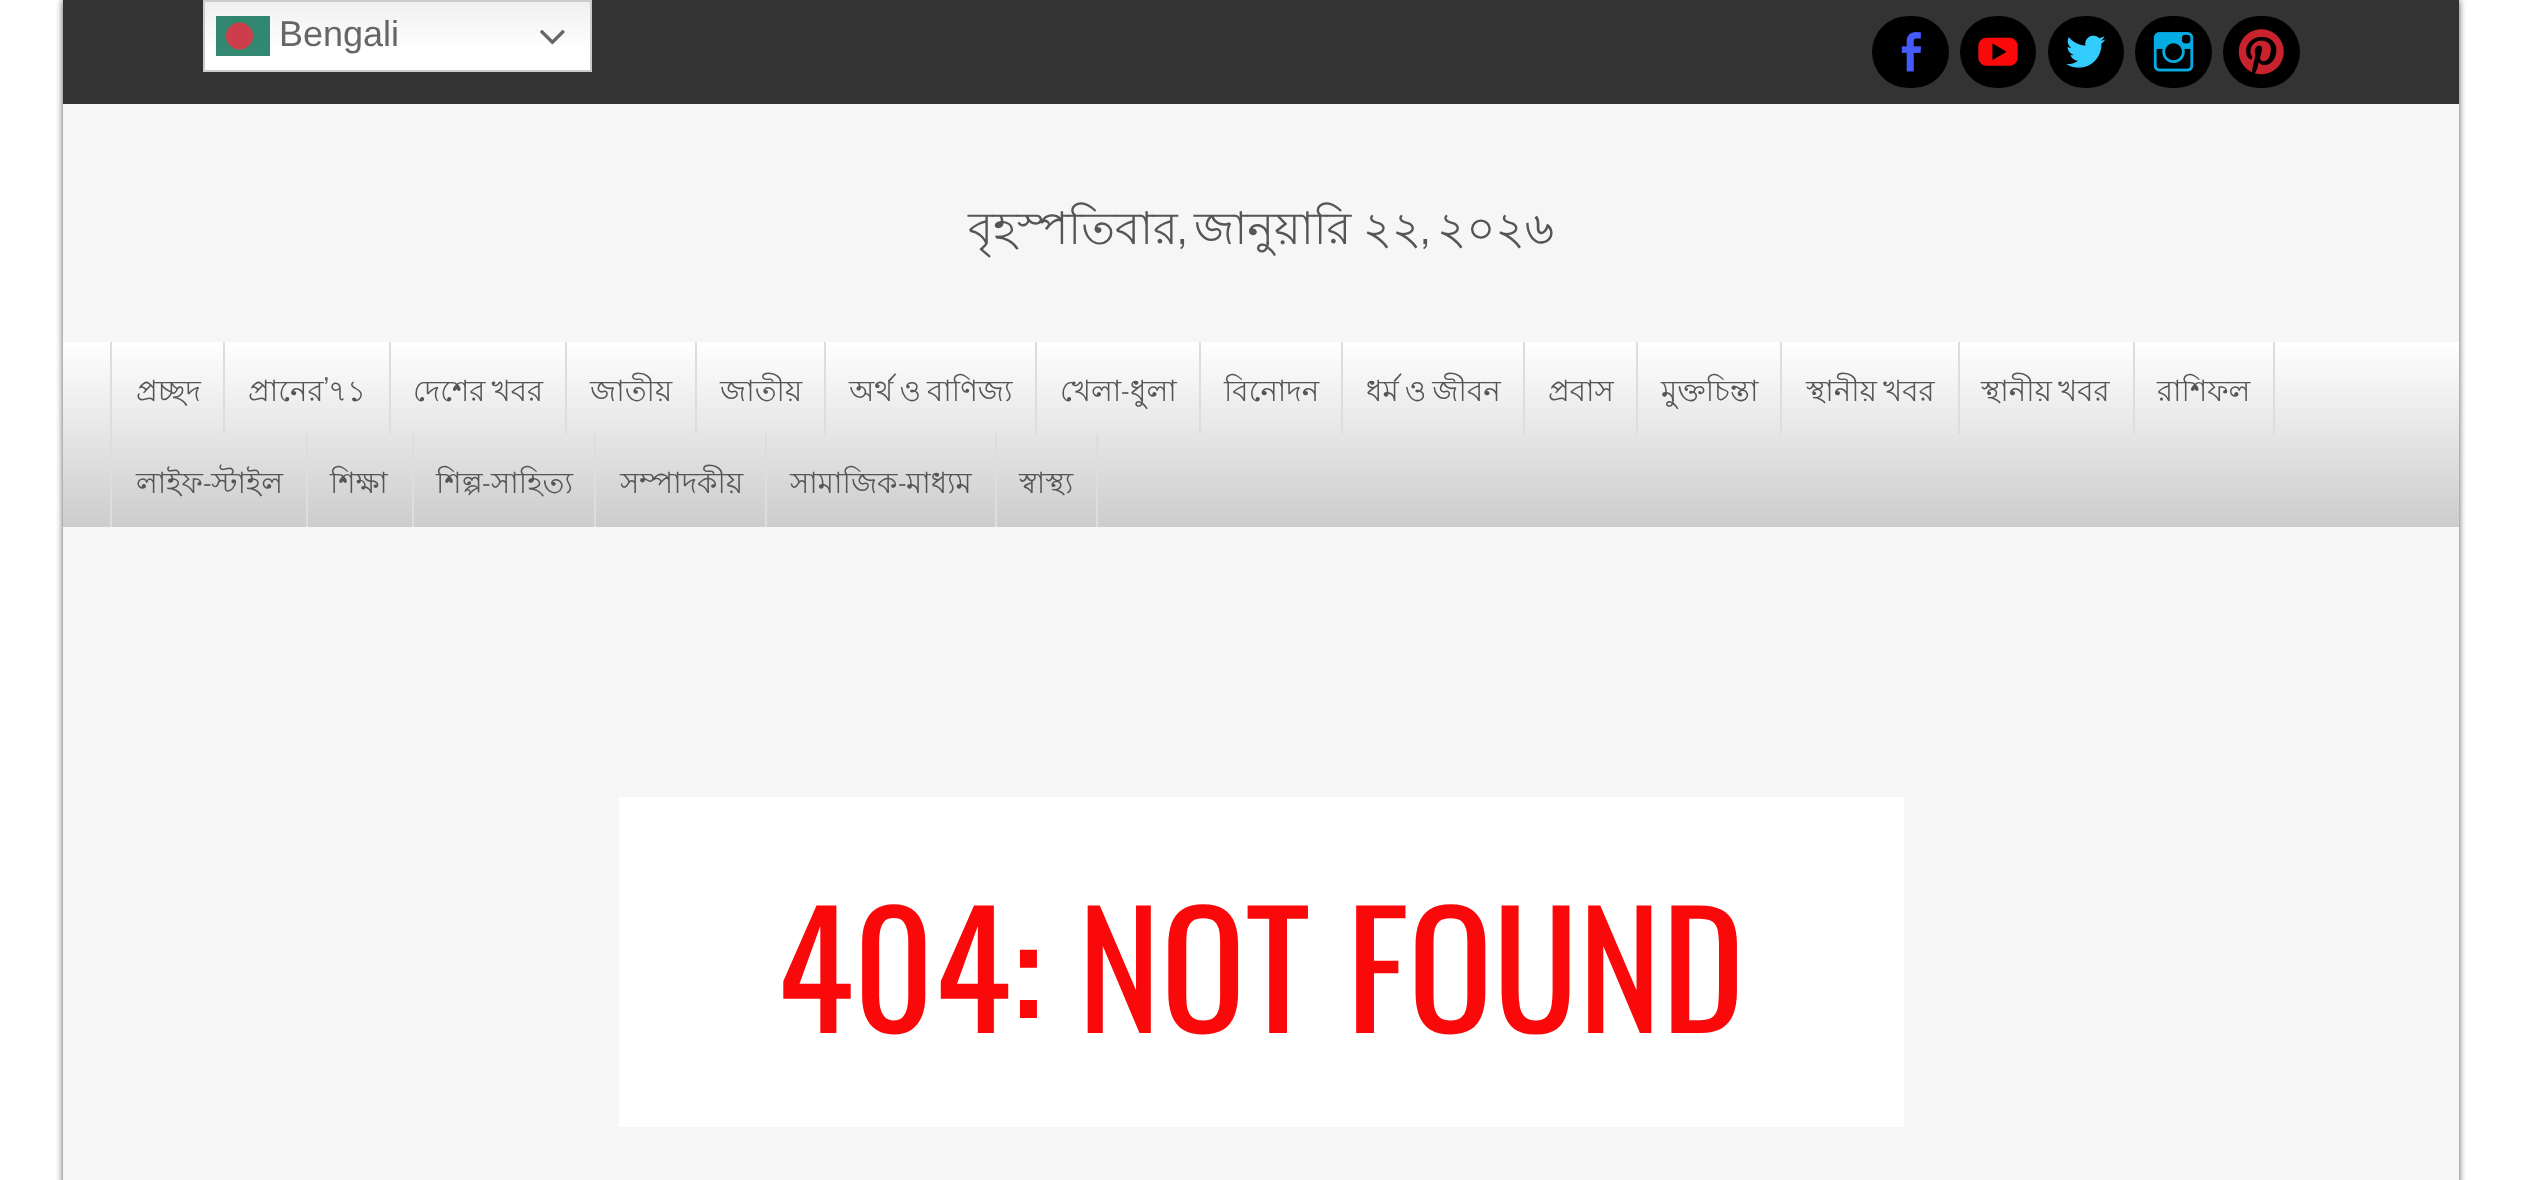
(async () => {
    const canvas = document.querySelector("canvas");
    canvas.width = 2522;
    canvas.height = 1180;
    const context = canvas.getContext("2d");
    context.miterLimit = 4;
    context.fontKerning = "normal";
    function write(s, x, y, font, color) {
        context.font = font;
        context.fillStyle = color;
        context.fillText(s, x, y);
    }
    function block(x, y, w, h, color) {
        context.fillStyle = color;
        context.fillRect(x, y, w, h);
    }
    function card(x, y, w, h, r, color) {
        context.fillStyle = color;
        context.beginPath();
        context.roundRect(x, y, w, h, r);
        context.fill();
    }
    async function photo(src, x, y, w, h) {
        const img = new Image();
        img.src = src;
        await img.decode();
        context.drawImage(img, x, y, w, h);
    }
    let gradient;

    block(0, 0, 2522, 1180, "rgb(255, 255, 255)");
    context.fillStyle = "rgb(85, 85, 85)";
    context.filter = "blur(3.5px)";
    context.beginPath();
    context.rect(63, 0, 2396, 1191);
    context.fill();
    context.filter = "none";
    block(63, 0, 2396, 104, "rgb(51, 51, 51)");
    gradient = context.createLinearGradient(397, 0, 397, 72);
    gradient.addColorStop(0, "rgb(239, 239, 239)");
    gradient.addColorStop(0.7, "rgb(255, 255, 255)");
    context.fillStyle = gradient;
    context.fillRect(205, 2, 385, 68);
    gradient = context.createLinearGradient(397, 0, 397, 72);
    gradient.addColorStop(0, "rgb(48, 133, 110)");
    gradient.addColorStop(0.7, "rgb(51, 136, 113)");
    context.fillStyle = gradient;
    context.fillRect(216, 16, 54, 40);
    context.strokeStyle = "rgb(204, 204, 204)";
    context.lineWidth = 2;
    context.strokeRect(204, 1, 387, 70);
    context.fillStyle = "rgb(205, 61, 75)";
    context.beginPath();
    context.arc(239.5, 36, 13.5, 0, Math.PI * 2);
    context.fill();
    write("Bengali", 279, 46, "36px Liberation Sans", "rgb(102, 102, 102)");
    await photo("media/1.png", 540, 30, 25, 15);
    block(63, 104, 2396, 1076, "rgb(246, 246, 246)");
    card(1872, 16, 77, 72, 36, "rgb(0, 0, 0)");
    await photo("media/2.png", 1901, 32, 20, 40);
    card(1960, 16, 76, 72, 36, "rgb(0, 0, 0)");
    await photo("media/3.png", 1978, 37, 40, 29);
    card(2048, 16, 76, 72, 36, "rgb(0, 0, 0)");
    await photo("media/4.png", 2066, 35, 40, 33);
    card(2135, 16, 77, 72, 36, "rgb(0, 0, 0)");
    await photo("media/5.png", 2153, 32, 41, 40);
    card(2223, 16, 77, 72, 36, "rgb(0, 0, 0)");
    await photo("media/6.png", 2238, 29, 46, 46);
    write("বৃহস্পতিবার", 968, 244, "45px Lohit Bengali", "rgb(85, 85, 85)");
    write(",", 1178, 244, "300 45px Oswald", "rgb(85, 85, 85)");
    context.wordSpacing = "-1px";
    write("জানুয়ারি ২২", 1194, 244, "45px Lohit Bengali", "rgb(85, 85, 85)");
    context.wordSpacing = "0px";
    write(",", 1421, 244, "300 45px Oswald", "rgb(85, 85, 85)");
    write("২০২৬", 1437, 244, "45px Lohit Bengali", "rgb(85, 85, 85)");
    gradient = context.createLinearGradient(1261, 342, 1261, 527);
    gradient.addColorStop(0, "rgb(255, 255, 255)");
    gradient.addColorStop(1, "rgb(204, 204, 204)");
    gradient.addColorStop(1, "rgb(246, 246, 246)");
    context.fillStyle = gradient;
    context.fillRect(63, 342, 2396, 185);
    block(110, 342, 2, 185, "rgb(221, 221, 221)");
    block(223, 342, 2, 92, "rgb(221, 221, 221)");
    write("প্রচ্ছদ", 136, 401, "29.25px Lohit Bengali", "rgb(85, 85, 85)");
    block(389, 342, 2, 92, "rgb(221, 221, 221)");
    write("প্রানের", 248, 401, "29.25px Lohit Bengali", "rgb(85, 85, 85)");
    write("’", 324, 401, "300 29.25px Oswald", "rgb(85, 85, 85)");
    write("৭১", 328, 401, "29.25px Lohit Bengali", "rgb(85, 85, 85)");
    block(565, 342, 2, 92, "rgb(221, 221, 221)");
    context.wordSpacing = "-2px";
    write("দেশের খবর", 413, 401, "29.25px Lohit Bengali", "rgb(85, 85, 85)");
    block(695, 342, 2, 92, "rgb(221, 221, 221)");
    context.wordSpacing = "0px";
    write("জাতীয়", 590, 401, "29.25px Lohit Bengali", "rgb(85, 85, 85)");
    block(824, 342, 2, 92, "rgb(221, 221, 221)");
    write("জাতীয়", 720, 401, "29.25px Lohit Bengali", "rgb(85, 85, 85)");
    block(1035, 342, 2, 92, "rgb(221, 221, 221)");
    context.wordSpacing = "-2px";
    write("অর্থ ও বাণিজ্য", 849, 401, "29.25px Lohit Bengali", "rgb(85, 85, 85)");
    block(1199, 342, 2, 92, "rgb(221, 221, 221)");
    context.wordSpacing = "0px";
    write("খেলা", 1060, 401, "29.25px Lohit Bengali", "rgb(85, 85, 85)");
    write("-", 1121, 401, "300 29.25px Oswald", "rgb(85, 85, 85)");
    write("ধুলা", 1130, 401, "29.25px Lohit Bengali", "rgb(85, 85, 85)");
    block(1341, 342, 2, 92, "rgb(221, 221, 221)");
    write("বিনোদন", 1224, 401, "29.25px Lohit Bengali", "rgb(85, 85, 85)");
    block(1523, 342, 2, 92, "rgb(221, 221, 221)");
    context.wordSpacing = "-2px";
    write("ধর্ম ও জীবন", 1366, 401, "29.25px Lohit Bengali", "rgb(85, 85, 85)");
    block(1636, 342, 2, 92, "rgb(221, 221, 221)");
    context.wordSpacing = "0px";
    write("প্রবাস", 1548, 401, "29.25px Lohit Bengali", "rgb(85, 85, 85)");
    block(1780, 342, 2, 92, "rgb(221, 221, 221)");
    write("মুক্তচিন্তা", 1661, 401, "29.25px Lohit Bengali", "rgb(85, 85, 85)");
    block(1958, 342, 2, 92, "rgb(221, 221, 221)");
    context.wordSpacing = "-2px";
    write("স্থানীয় খবর", 1806, 401, "29.25px Lohit Bengali", "rgb(85, 85, 85)");
    block(2133, 342, 2, 92, "rgb(221, 221, 221)");
    write("স্থানীয় খবর", 1981, 401, "29.25px Lohit Bengali", "rgb(85, 85, 85)");
    block(2273, 342, 2, 92, "rgb(221, 221, 221)");
    context.wordSpacing = "0px";
    write("রাশিফল", 2157, 401, "29.25px Lohit Bengali", "rgb(85, 85, 85)");
    block(306, 434, 2, 93, "rgb(221, 221, 221)");
    write("লাইফ", 136, 493, "29.25px Lohit Bengali", "rgb(85, 85, 85)");
    write("-", 203, 493, "300 29.25px Oswald", "rgb(85, 85, 85)");
    write("স্টাইল", 211, 493, "29.25px Lohit Bengali", "rgb(85, 85, 85)");
    block(412, 434, 2, 93, "rgb(221, 221, 221)");
    write("শিক্ষা", 330, 493, "29.25px Lohit Bengali", "rgb(85, 85, 85)");
    block(594, 434, 2, 93, "rgb(221, 221, 221)");
    write("শিল্প", 436, 493, "29.25px Lohit Bengali", "rgb(85, 85, 85)");
    write("-", 482, 493, "300 29.25px Oswald", "rgb(85, 85, 85)");
    write("সাহিত্য", 491, 493, "29.25px Lohit Bengali", "rgb(85, 85, 85)");
    block(765, 434, 2, 93, "rgb(221, 221, 221)");
    write("সম্পাদকীয়", 620, 493, "29.25px Lohit Bengali", "rgb(85, 85, 85)");
    block(995, 434, 2, 93, "rgb(221, 221, 221)");
    write("সামাজিক", 790, 493, "29.25px Lohit Bengali", "rgb(85, 85, 85)");
    write("-", 898, 493, "300 29.25px Oswald", "rgb(85, 85, 85)");
    write("মাধ্যম", 906, 493, "29.25px Lohit Bengali", "rgb(85, 85, 85)");
    block(1096, 434, 2, 93, "rgb(221, 221, 221)");
    write("স্বাস্থ্য", 1019, 493, "29.25px Lohit Bengali", "rgb(85, 85, 85)");
    block(619, 797, 1285, 330, "rgb(255, 255, 255)");
    write("404: NOT FOUND", 777, 1033, "157.5px Oswald", "rgb(249, 9, 9)");
})();
